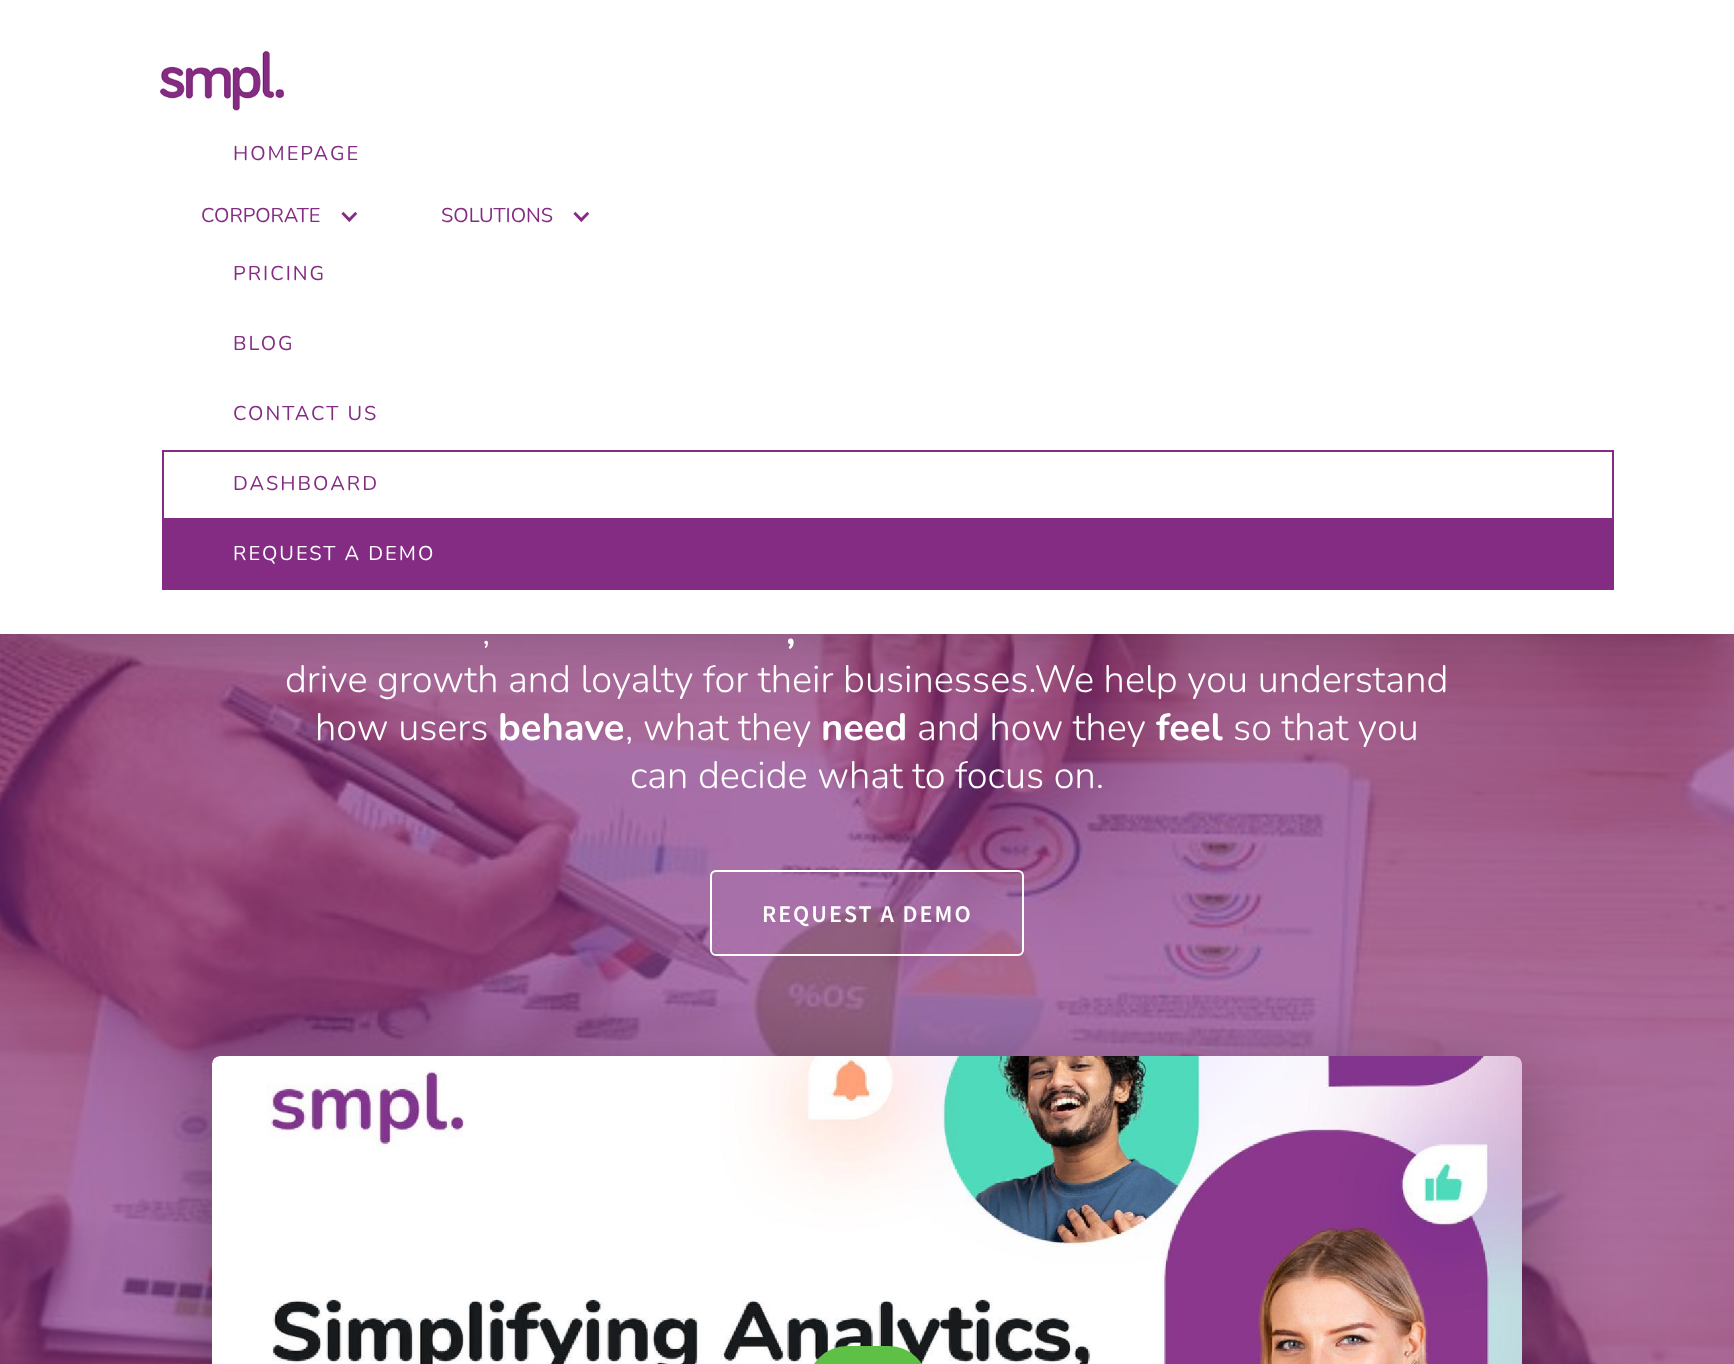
(async () => {
    const canvas = document.querySelector("canvas");
    canvas.width = 1734;
    canvas.height = 1364;
    const context = canvas.getContext("2d");
    context.miterLimit = 4;
    context.fontKerning = "normal";
    function write(s, x, y, font, color) {
        context.font = font;
        context.fillStyle = color;
        context.fillText(s, x, y);
    }
    function block(x, y, w, h, color) {
        context.fillStyle = color;
        context.fillRect(x, y, w, h);
    }
    function card(x, y, w, h, r, color) {
        context.fillStyle = color;
        context.beginPath();
        context.roundRect(x, y, w, h, r);
        context.fill();
    }
    async function photo(src, x, y, w, h) {
        const img = new Image();
        img.src = src;
        await img.decode();
        context.drawImage(img, x, y, w, h);
    }

    block(0, 0, 1734, 1364, "rgb(255, 255, 255)");
    await photo("media/3.png", 0, 634, 1734, 730);
    context.fillStyle = "rgba(0, 0, 0, 0.2)";
    context.filter = "blur(33px)";
    context.beginPath();
    context.rect(0, 0, 1734, 634);
    context.fill();
    context.filter = "none";
    block(0, 0, 1734, 634, "rgb(255, 255, 255)");
    await photo("media/1.png", 160, 51, 124, 60);
    context.letterSpacing = "2px";
    write("HOMEPAGE", 233, 160, "20px Nunito", "rgb(132, 44, 132)");
    context.letterSpacing = "0px";
    write("CORPORATE", 201, 222, "20px Nunito", "rgb(132, 44, 132)");
    await photo("media/2.png", 341, 211, 17, 11);
    write("SOLUTIONS", 441, 222, "20px Nunito", "rgb(132, 44, 132)");
    await photo("media/2.png", 573, 211, 17, 11);
    context.letterSpacing = "2px";
    write("PRICING", 233, 280, "20px Nunito", "rgb(132, 44, 132)");
    write("BLOG", 233, 350, "20px Nunito", "rgb(132, 44, 132)");
    write("CONTACT US", 233, 420, "20px Nunito", "rgb(132, 44, 132)");
    context.strokeStyle = "rgb(132, 44, 132)";
    context.lineWidth = 2;
    context.strokeRect(163, 451, 1450, 68);
    write("DASHBOARD", 233, 490, "20px Nunito", "rgb(132, 44, 132)");
    block(162, 520, 1452, 70, "rgb(132, 44, 132)");
    write("REQUEST A DEMO", 233, 560, "20px Nunito", "rgb(255, 255, 255)");
    context.letterSpacing = "0px";
    write(",", 482, 644, "300 38px Nunito", "rgb(255, 255, 255)");
    write(",", 786, 644, "bold 38px Nunito", "rgb(255, 255, 255)");
    write("drive growth and loyalty for their businesses.We help you understand", 285, 692, "300 38px Nunito", "rgb(255, 255, 255)");
    write("how users", 315, 740, "300 38px Nunito", "rgb(255, 255, 255)");
    write("behave", 498, 740, "bold 38px Nunito", "rgb(255, 255, 255)");
    write(", what they", 625, 740, "300 38px Nunito", "rgb(255, 255, 255)");
    write("need", 821, 740, "bold 38px Nunito", "rgb(255, 255, 255)");
    write("and how they", 917, 740, "300 38px Nunito", "rgb(255, 255, 255)");
    write("feel", 1156, 740, "bold 38px Nunito", "rgb(255, 255, 255)");
    write("so that you", 1233, 740, "300 38px Nunito", "rgb(255, 255, 255)");
    write("can decide what to focus on.", 630, 788, "300 38px Nunito", "rgb(255, 255, 255)");
    context.beginPath();
    context.roundRect(711, 871, 312, 84, 5);
    context.strokeStyle = "rgb(255, 255, 255)";
    context.stroke();
    context.letterSpacing = "2px";
    write("REQUEST A DEMO", 762, 922, "600 24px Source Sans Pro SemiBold", "rgb(255, 255, 255)");
    context.fillStyle = "rgba(0, 0, 0, 0.3)";
    context.filter = "blur(40px)";
    context.beginPath();
    context.roundRect(212, 1076, 1310, 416, 8);
    context.fill();
    context.filter = "none";
    await photo("media/4.png", 212, 1056, 1310, 308);
    card(808, 1346, 120, 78, 60, "rgb(94, 192, 69)");
})();
